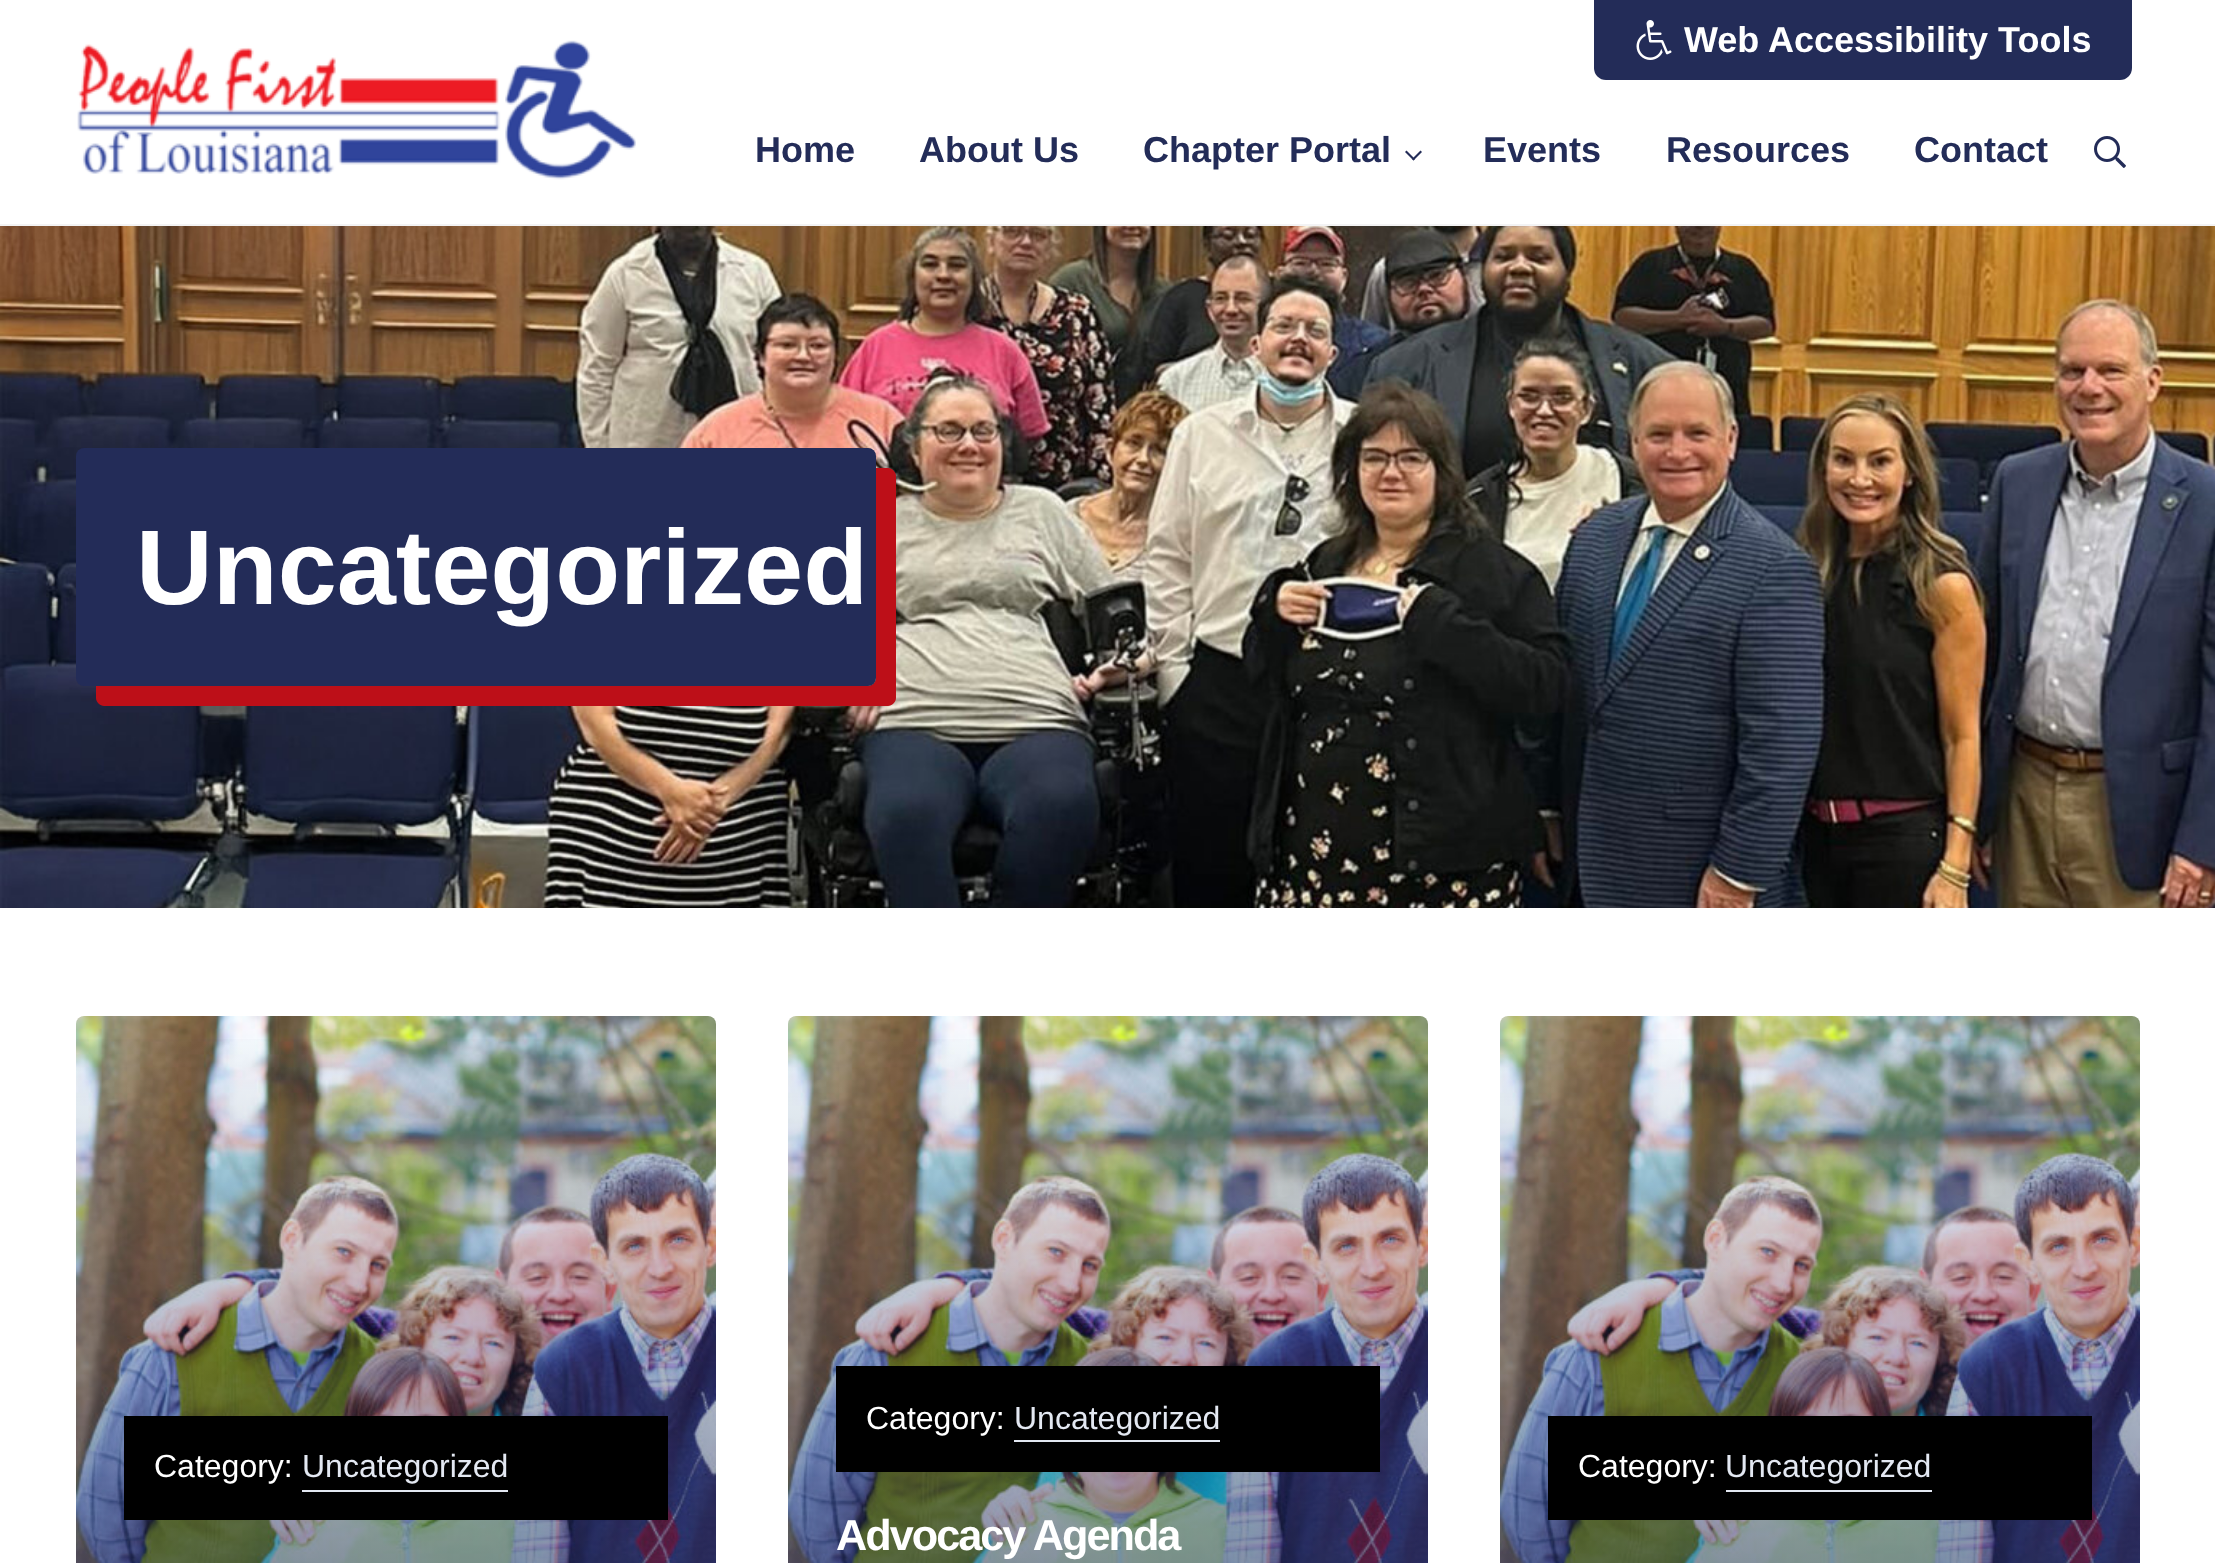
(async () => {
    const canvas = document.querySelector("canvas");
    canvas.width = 2215;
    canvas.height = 1563;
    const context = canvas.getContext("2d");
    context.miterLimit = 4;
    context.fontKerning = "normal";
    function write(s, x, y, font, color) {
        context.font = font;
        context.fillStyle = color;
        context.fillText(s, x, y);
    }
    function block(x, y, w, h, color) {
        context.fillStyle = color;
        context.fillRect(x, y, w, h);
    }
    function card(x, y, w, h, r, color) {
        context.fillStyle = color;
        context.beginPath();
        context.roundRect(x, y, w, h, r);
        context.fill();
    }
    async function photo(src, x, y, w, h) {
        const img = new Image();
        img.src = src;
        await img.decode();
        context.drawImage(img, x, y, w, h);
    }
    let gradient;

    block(0, 0, 2215, 1563, "rgb(255, 255, 255)");
    block(0, 224, 2215, 2, "rgb(243, 243, 244)");
    await photo("media/1.png", 77, 40, 559, 140);
    context.fillStyle = "rgb(35, 44, 88)";
    context.beginPath();
    context.roundRect(1594, 0, 538, 80, [0, 0, 12, 12]);
    context.fill();
    await photo("media/2.png", 1636, 20, 36, 40);
    write("Web Accessibility Tools", 1684, 52, "bold 36px Liberation Sans", "rgb(255, 255, 255)");
    write("Home", 755, 162, "bold 36px Liberation Sans", "rgb(35, 44, 88)");
    write("About Us", 919, 162, "bold 36px Liberation Sans", "rgb(35, 44, 88)");
    write("Chapter Portal", 1143, 162, "bold 36px Liberation Sans", "rgb(35, 44, 88)");
    context.beginPath();
    context.moveTo(1420.5, 150.5);
    context.lineTo(1422, 152);
    context.lineTo(1413.5, 160.5);
    context.lineTo(1412, 159);
    context.closePath();
    context.fill();
    context.beginPath();
    context.moveTo(1406.5, 150.5);
    context.lineTo(1415, 159);
    context.lineTo(1413.5, 160.5);
    context.lineTo(1405, 152);
    context.closePath();
    context.fill();
    write("Events", 1483, 162, "bold 36px Liberation Sans", "rgb(35, 44, 88)");
    write("Resources", 1666, 162, "bold 36px Liberation Sans", "rgb(35, 44, 88)");
    write("Contact", 1914, 162, "bold 36px Liberation Sans", "rgb(35, 44, 88)");
    await photo("media/3.png", 2094, 136, 32, 32);
    await photo("media/4.png", 0, 226, 2215, 682);
    context.fillStyle = "rgb(189, 15, 24)";
    context.beginPath();
    context.moveTo(96, 686);
    context.lineTo(96, 698);
    context.bezierCurveTo(96, 702, 100, 706, 104, 706);
    context.lineTo(888, 706);
    context.bezierCurveTo(892, 706, 896, 702, 896, 698);
    context.lineTo(896, 476);
    context.bezierCurveTo(896, 472, 892, 468, 888, 468);
    context.lineTo(876, 468);
    context.lineTo(876, 678);
    context.bezierCurveTo(876, 682, 872, 686, 868, 686);
    context.closePath();
    context.fill();
    card(76, 448, 800, 238, 8, "rgb(35, 44, 88)");
    write("Uncategorized", 136, 604, "bold 106.25px Liberation Sans", "rgb(255, 255, 255)");
    await photo("media/5.png", 76, 1016, 640, 547);
    gradient = context.createLinearGradient(396, 1016, 396, 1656);
    gradient.addColorStop(0, "rgba(35, 44, 88, 0)");
    gradient.addColorStop(1, "rgba(35, 44, 88, 0.6)");
    context.fillStyle = gradient;
    context.fillRect(76, 1039, 640, 524);
    block(124, 1416, 544, 104, "rgb(0, 0, 0)");
    write("Category:", 154, 1477, "32px Liberation Sans", "rgb(255, 255, 255)");
    write("Uncategorized", 302, 1477, "32px Liberation Sans", "rgb(227, 232, 242)");
    block(302, 1490, 206, 2, "rgb(227, 232, 242)");
    await photo("media/5.png", 788, 1016, 640, 547);
    gradient = context.createLinearGradient(1108, 1016, 1108, 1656);
    gradient.addColorStop(0, "rgba(35, 44, 88, 0)");
    gradient.addColorStop(1, "rgba(35, 44, 88, 0.6)");
    context.fillStyle = gradient;
    context.fillRect(788, 1039, 640, 524);
    block(836, 1366, 544, 106, "rgb(0, 0, 0)");
    write("Category:", 866, 1429, "32px Liberation Sans", "rgb(255, 255, 255)");
    write("Uncategorized", 1014, 1429, "32px Liberation Sans", "rgb(227, 232, 242)");
    block(1014, 1440, 206, 2, "rgb(227, 232, 242)");
    context.letterSpacing = "-2px";
    write("Advocacy Agenda", 836, 1550, "bold 43.25px Liberation Sans", "rgb(255, 255, 255)");
    await photo("media/5.png", 1500, 1016, 640, 547);
    gradient = context.createLinearGradient(1820, 1016, 1820, 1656);
    gradient.addColorStop(0, "rgba(35, 44, 88, 0)");
    gradient.addColorStop(1, "rgba(35, 44, 88, 0.6)");
    context.fillStyle = gradient;
    context.fillRect(1500, 1039, 640, 524);
    block(1548, 1416, 544, 104, "rgb(0, 0, 0)");
    context.letterSpacing = "0px";
    write("Category:", 1578, 1477, "32px Liberation Sans", "rgb(255, 255, 255)");
    write("Uncategorized", 1725, 1477, "32px Liberation Sans", "rgb(227, 232, 242)");
    block(1726, 1490, 206, 2, "rgb(227, 232, 242)");
})();
